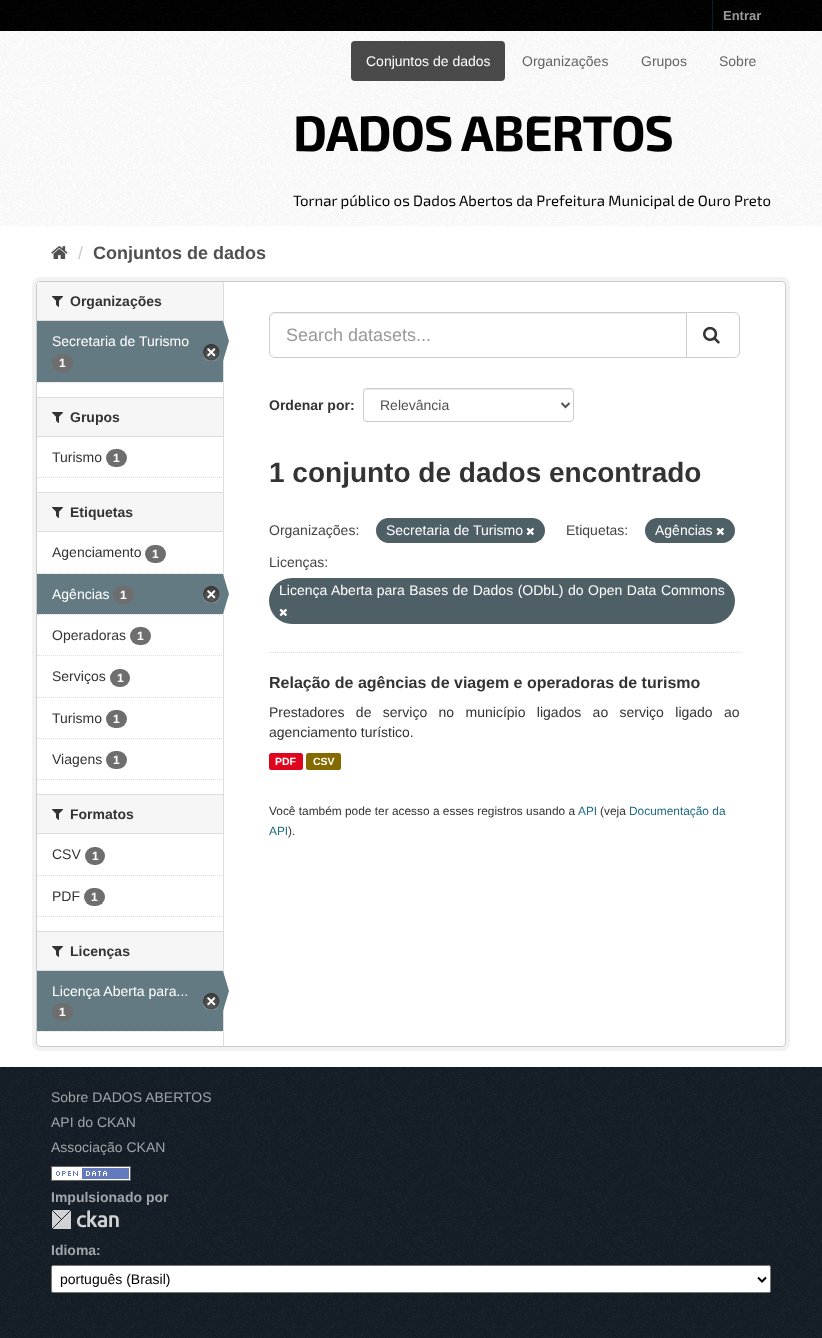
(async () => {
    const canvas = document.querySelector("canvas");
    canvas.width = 822;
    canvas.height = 1338;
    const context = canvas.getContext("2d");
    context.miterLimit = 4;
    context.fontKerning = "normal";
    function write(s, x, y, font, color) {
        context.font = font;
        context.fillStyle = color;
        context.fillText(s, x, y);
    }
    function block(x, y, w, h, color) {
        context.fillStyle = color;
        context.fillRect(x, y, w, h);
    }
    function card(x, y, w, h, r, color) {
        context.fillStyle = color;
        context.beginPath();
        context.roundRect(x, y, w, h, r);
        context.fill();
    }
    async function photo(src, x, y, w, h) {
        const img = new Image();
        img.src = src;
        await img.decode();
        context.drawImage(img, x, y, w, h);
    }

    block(0, 0, 822, 1338, "rgb(21, 30, 39)");
    await photo("media/1.png", 0, 1313, 822, 25);
    block(0, 0, 822, 31, "rgb(0, 0, 0)");
    await photo("media/2.png", 0, 0, 822, 31);
    block(712, 0, 1, 31, "rgb(0, 35, 46)");
    write("Entrar", 723, 20, "bold 13px Liberation Sans", "rgb(154, 154, 154)");
    block(0, 31, 822, 1036, "rgb(255, 255, 255)");
    await photo("media/3.png", 0, 31, 822, 195);
    card(351, 41, 154, 40, 4, "rgb(74, 74, 74)");
    write("Conjuntos de dados", 366, 66, "14px Liberation Sans", "rgb(255, 255, 255)");
    write("Organizações", 522, 66, "14px Liberation Sans", "rgb(100, 100, 100)");
    write("Grupos", 641, 66, "14px Liberation Sans", "rgb(100, 100, 100)");
    write("Sobre", 719, 66, "14px Liberation Sans", "rgb(100, 100, 100)");
    context.letterSpacing = "-1px";
    write("DADOS ABERTOS", 293, 151, "bold 50px 'Exo 2'", "rgb(0, 0, 0)");
    context.letterSpacing = "0px";
    write("Tornar público os Dados Abertos da Prefeitura Municipal de Ouro Preto", 293, 206, "15px 'Exo 2'", "rgb(0, 0, 0)");
    await photo("media/4.png", 51, 246, 17, 13);
    write("/", 78, 259, "18px Liberation Sans", "rgb(204, 204, 204)");
    write("Conjuntos de dados", 93, 259, "bold 18px Liberation Sans", "rgb(80, 80, 80)");
    context.beginPath();
    context.roundRect(34, 279, 754, 770, 6);
    context.strokeStyle = "rgb(242, 242, 242)";
    context.lineWidth = 4;
    context.stroke();
    context.fillStyle = "rgb(255, 255, 255)";
    context.beginPath();
    context.roundRect(36.5, 281.5, 749, 765, 3.5);
    context.fill();
    context.strokeStyle = "rgb(204, 204, 204)";
    context.lineWidth = 1;
    context.stroke();
    context.fillStyle = "rgb(246, 246, 246)";
    context.beginPath();
    context.roundRect(37, 282, 186, 39, [3, 0, 0, 0]);
    context.fill();
    block(37, 320, 186, 1, "rgb(221, 221, 221)");
    await photo("media/5.png", 52, 296, 11, 11);
    write("Organizações", 70, 306, "bold 14px Liberation Sans", "rgb(51, 51, 51)");
    block(37, 321, 186, 61, "rgb(100, 122, 130)");
    write("Secretaria de Turismo", 52, 346, "14px Liberation Sans", "rgb(255, 255, 255)");
    block(223, 282, 1, 764, "rgb(221, 221, 221)");
    context.fillStyle = "rgb(100, 122, 130)";
    context.beginPath();
    context.moveTo(223, 361);
    context.lineTo(223, 321);
    context.lineTo(229, 341);
    context.closePath();
    context.fill();
    await photo("media/6.png", 203, 344, 17, 17);
    card(52, 354, 21, 18, 9, "rgb(110, 110, 110)");
    write("1", 59, 367, "bold 12px Liberation Sans", "rgb(255, 255, 255)");
    context.beginPath();
    context.moveTo(37, 382.5);
    context.lineTo(223, 382.5);
    context.strokeStyle = "rgb(221, 221, 221)";
    context.setLineDash([1, 1]);
    context.stroke();
    block(37, 398, 186, 38, "rgb(246, 246, 246)");
    block(37, 397, 186, 1, "rgb(221, 221, 221)");
    block(37, 436, 186, 1, "rgb(221, 221, 221)");
    await photo("media/5.png", 52, 412, 11, 11);
    write("Grupos", 70, 422, "bold 14px Liberation Sans", "rgb(51, 51, 51)");
    write("Turismo", 52, 462, "14px Liberation Sans", "rgb(51, 51, 51)");
    card(106, 449, 21, 18, 9, "rgb(110, 110, 110)");
    write("1", 113, 462, "bold 12px Liberation Sans", "rgb(255, 255, 255)");
    context.beginPath();
    context.moveTo(37, 477.5);
    context.lineTo(223, 477.5);
    context.stroke();
    block(37, 493, 186, 38, "rgb(246, 246, 246)");
    block(37, 492, 186, 1, "rgb(221, 221, 221)");
    block(37, 531, 186, 1, "rgb(221, 221, 221)");
    await photo("media/5.png", 52, 507, 11, 11);
    write("Etiquetas", 70, 517, "bold 14px Liberation Sans", "rgb(51, 51, 51)");
    context.beginPath();
    context.moveTo(37, 573.5);
    context.lineTo(223, 573.5);
    context.stroke();
    write("Agenciamento", 52, 557, "14px Liberation Sans", "rgb(51, 51, 51)");
    card(145, 545, 21, 18, 9, "rgb(110, 110, 110)");
    write("1", 152, 558, "bold 12px Liberation Sans", "rgb(255, 255, 255)");
    block(38, 614, 185, 1, "rgb(246, 246, 246)");
    context.beginPath();
    context.moveTo(37, 614.5);
    context.lineTo(223, 614.5);
    context.stroke();
    block(37, 574, 186, 40, "rgb(100, 122, 130)");
    write("Agências", 52, 599, "14px Liberation Sans", "rgb(255, 255, 255)");
    card(113, 586, 21, 18, 9, "rgb(110, 110, 110)");
    write("1", 120, 599, "bold 12px Liberation Sans", "rgb(255, 255, 255)");
    await photo("media/6.png", 203, 586, 17, 17);
    context.fillStyle = "rgb(100, 122, 130)";
    context.beginPath();
    context.moveTo(223, 614);
    context.lineTo(223, 574);
    context.lineTo(229, 594);
    context.closePath();
    context.fill();
    context.beginPath();
    context.moveTo(37, 655.5);
    context.lineTo(223, 655.5);
    context.stroke();
    write("Operadoras", 52, 640, "14px Liberation Sans", "rgb(51, 51, 51)");
    card(130, 627, 21, 18, 9, "rgb(110, 110, 110)");
    write("1", 137, 640, "bold 12px Liberation Sans", "rgb(255, 255, 255)");
    context.beginPath();
    context.moveTo(37, 697.5);
    context.lineTo(223, 697.5);
    context.stroke();
    write("Serviços", 52, 681, "14px Liberation Sans", "rgb(51, 51, 51)");
    card(110, 669, 20, 18, 9, "rgb(110, 110, 110)");
    write("1", 117, 682, "bold 12px Liberation Sans", "rgb(255, 255, 255)");
    context.beginPath();
    context.moveTo(37, 738.5);
    context.lineTo(223, 738.5);
    context.stroke();
    write("Turismo", 52, 723, "14px Liberation Sans", "rgb(51, 51, 51)");
    card(106, 710, 21, 18, 9, "rgb(110, 110, 110)");
    write("1", 113, 723, "bold 12px Liberation Sans", "rgb(255, 255, 255)");
    write("Viagens", 52, 764, "14px Liberation Sans", "rgb(51, 51, 51)");
    card(106, 751, 21, 18, 9, "rgb(110, 110, 110)");
    write("1", 113, 764, "bold 12px Liberation Sans", "rgb(255, 255, 255)");
    context.beginPath();
    context.moveTo(37, 779.5);
    context.lineTo(223, 779.5);
    context.stroke();
    block(37, 795, 186, 38, "rgb(246, 246, 246)");
    block(37, 794, 186, 1, "rgb(221, 221, 221)");
    block(37, 833, 186, 1, "rgb(221, 221, 221)");
    await photo("media/5.png", 52, 809, 11, 11);
    write("Formatos", 70, 819, "bold 14px Liberation Sans", "rgb(51, 51, 51)");
    context.beginPath();
    context.moveTo(37, 875.5);
    context.lineTo(223, 875.5);
    context.stroke();
    write("CSV", 52, 859, "14px Liberation Sans", "rgb(51, 51, 51)");
    card(85, 847, 20, 18, 9, "rgb(110, 110, 110)");
    write("1", 92, 860, "bold 12px Liberation Sans", "rgb(255, 255, 255)");
    write("PDF", 52, 901, "14px Liberation Sans", "rgb(51, 51, 51)");
    card(84, 888, 21, 18, 9, "rgb(110, 110, 110)");
    write("1", 91, 901, "bold 12px Liberation Sans", "rgb(255, 255, 255)");
    context.beginPath();
    context.moveTo(37, 916.5);
    context.lineTo(223, 916.5);
    context.stroke();
    block(37, 932, 186, 38, "rgb(246, 246, 246)");
    block(37, 931, 186, 1, "rgb(221, 221, 221)");
    block(37, 970, 186, 1, "rgb(221, 221, 221)");
    await photo("media/5.png", 52, 946, 11, 11);
    write("Licenças", 70, 956, "bold 14px Liberation Sans", "rgb(51, 51, 51)");
    block(37, 971, 186, 60, "rgb(100, 122, 130)");
    write("Licença Aberta para...", 52, 996, "14px Liberation Sans", "rgb(255, 255, 255)");
    await photo("media/6.png", 203, 993, 17, 17);
    context.fillStyle = "rgb(100, 122, 130)";
    context.beginPath();
    context.moveTo(223, 1011);
    context.lineTo(223, 971);
    context.lineTo(229, 991);
    context.closePath();
    context.fill();
    card(52, 1003, 21, 18, 9, "rgb(110, 110, 110)");
    write("1", 59, 1016, "bold 12px Liberation Sans", "rgb(255, 255, 255)");
    context.beginPath();
    context.moveTo(37, 1031.5);
    context.lineTo(223, 1031.5);
    context.stroke();
    context.beginPath();
    context.moveTo(269, 652.5);
    context.lineTo(740, 652.5);
    context.stroke();
    context.fillStyle = "rgb(236, 236, 236)";
    context.beginPath();
    context.moveTo(275, 314);
    context.lineTo(686, 314);
    context.lineTo(686, 313);
    context.lineTo(275, 313);
    context.bezierCurveTo(272, 313, 270, 316, 270, 319);
    context.bezierCurveTo(270, 316, 272, 314, 275, 314);
    context.closePath();
    context.fill();
    context.beginPath();
    context.roundRect(269.5, 312.5, 417, 45, [5.5, 0, 0, 5.5]);
    context.strokeStyle = "rgb(204, 204, 204)";
    context.setLineDash([]);
    context.stroke();
    write("Search datasets...", 286, 341, "18px Liberation Sans", "rgb(154, 154, 154)");
    context.fillStyle = "rgb(255, 255, 255)";
    context.beginPath();
    context.roundRect(686.5, 312.5, 53, 45, [0, 5.5, 5.5, 0]);
    context.fill();
    context.stroke();
    await photo("media/7.png", 703, 326, 17, 18);
    write("Ordenar por:", 269, 410, "bold 14px Liberation Sans", "rgb(51, 51, 51)");
    context.fillStyle = "rgb(236, 236, 236)";
    context.beginPath();
    context.moveTo(367, 390);
    context.lineTo(570, 390);
    context.bezierCurveTo(572, 390, 573, 391, 573, 393);
    context.lineTo(573, 392);
    context.bezierCurveTo(573, 390, 572, 389, 570, 389);
    context.lineTo(367, 389);
    context.bezierCurveTo(365, 389, 364, 390, 364, 392);
    context.lineTo(364, 393);
    context.bezierCurveTo(364, 391, 365, 390, 367, 390);
    context.closePath();
    context.fill();
    context.beginPath();
    context.roundRect(363.5, 388.5, 210, 33, 3.5);
    context.stroke();
    context.beginPath();
    context.moveTo(561.5, 403);
    context.lineTo(565.5, 407);
    context.lineTo(569.5, 403);
    context.strokeStyle = "rgb(85, 85, 85)";
    context.lineWidth = 2;
    context.stroke();
    write("Relevância", 380, 410, "14px Liberation Sans", "rgb(80, 80, 80)");
    write("1 conjunto de dados encontrado", 269, 482, "bold 28px Liberation Sans", "rgb(51, 51, 51)");
    write("Organizações:", 269, 535, "14px Liberation Sans", "rgb(68, 68, 68)");
    card(376, 518, 169, 25, 12.5, "rgb(78, 95, 101)");
    write("Secretaria de Turismo", 386, 535, "14px Liberation Sans", "rgb(255, 255, 255)");
    await photo("media/8.png", 526, 527, 8, 9);
    write("Etiquetas:", 566, 535, "14px Liberation Sans", "rgb(68, 68, 68)");
    card(645, 518, 90, 25, 12.5, "rgb(78, 95, 101)");
    write("Agências", 655, 535, "14px Liberation Sans", "rgb(255, 255, 255)");
    await photo("media/8.png", 716, 527, 8, 9);
    write("Licenças:", 269, 567, "14px Liberation Sans", "rgb(68, 68, 68)");
    card(269, 578, 466, 46, 23, "rgb(78, 95, 101)");
    context.wordSpacing = "0.6px";
    write("Licença Aberta para Bases de Dados (ODbL) do Open Data Commons", 279, 595, "14px Liberation Sans", "rgb(255, 255, 255)");
    await photo("media/8.png", 279, 608, 8, 9);
    context.wordSpacing = "0px";
    write("Relação de agências de viagem e operadoras de turismo", 269, 688, "bold 16px Liberation Sans", "rgb(51, 51, 51)");
    context.wordSpacing = "7.5px";
    write("Prestadores de serviço no município ligados ao serviço ligado ao", 269, 717, "14px Liberation Sans", "rgb(51, 51, 51)");
    context.wordSpacing = "0px";
    write("agenciamento turístico.", 269, 737, "14px Liberation Sans", "rgb(51, 51, 51)");
    card(269, 753, 34, 17, 2.5, "rgb(224, 5, 30)");
    write("PDF", 275, 765, "bold 10.5px Liberation Sans", "rgb(255, 255, 255)");
    card(306, 753, 35, 17, 2.5, "rgb(133, 106, 0)");
    write("CSV", 313, 765, "bold 10.5px Liberation Sans", "rgb(255, 255, 255)");
    write("Você também pode ter acesso a esses registros usando a", 269, 815, "11.9px Liberation Sans", "rgb(51, 51, 51)");
    write("API", 578, 815, "11.9px Liberation Sans", "rgb(32, 107, 130)");
    write("(veja", 600, 815, "11.9px Liberation Sans", "rgb(51, 51, 51)");
    write("Documentação da", 629, 815, "11.9px Liberation Sans", "rgb(32, 107, 130)");
    write("API", 269, 835, "11.9px Liberation Sans", "rgb(32, 107, 130)");
    write(").", 288, 835, "11.9px Liberation Sans", "rgb(51, 51, 51)");
    await photo("media/9.png", 0, 1067, 822, 246);
    write("Sobre DADOS ABERTOS", 51, 1102, "14px Liberation Sans", "rgb(162, 165, 169)");
    write("API do CKAN", 51, 1127, "14px Liberation Sans", "rgb(162, 165, 169)");
    write("Associação CKAN", 51, 1152, "14px Liberation Sans", "rgb(162, 165, 169)");
    await photo("media/10.png", 51, 1166, 80, 15);
    write("Impulsionado por", 51, 1202, "bold 14px Liberation Sans", "rgb(162, 165, 169)");
    await photo("media/11.png", 52, 1210, 67, 19);
    write("Idioma:", 51, 1255, "bold 14px Liberation Sans", "rgb(162, 165, 169)");
    context.fillStyle = "rgb(255, 255, 255)";
    context.beginPath();
    context.roundRect(51.5, 1265.5, 719, 27, 1.5);
    context.fill();
    context.strokeStyle = "rgb(118, 118, 118)";
    context.lineWidth = 1;
    context.stroke();
    context.beginPath();
    context.moveTo(758, 1277.5);
    context.lineTo(762, 1281.5);
    context.lineTo(766, 1277.5);
    context.strokeStyle = "rgb(0, 0, 0)";
    context.lineWidth = 2;
    context.stroke();
    write("português (Brasil)", 60, 1284, "14px Liberation Sans", "rgb(0, 0, 0)");
})();
